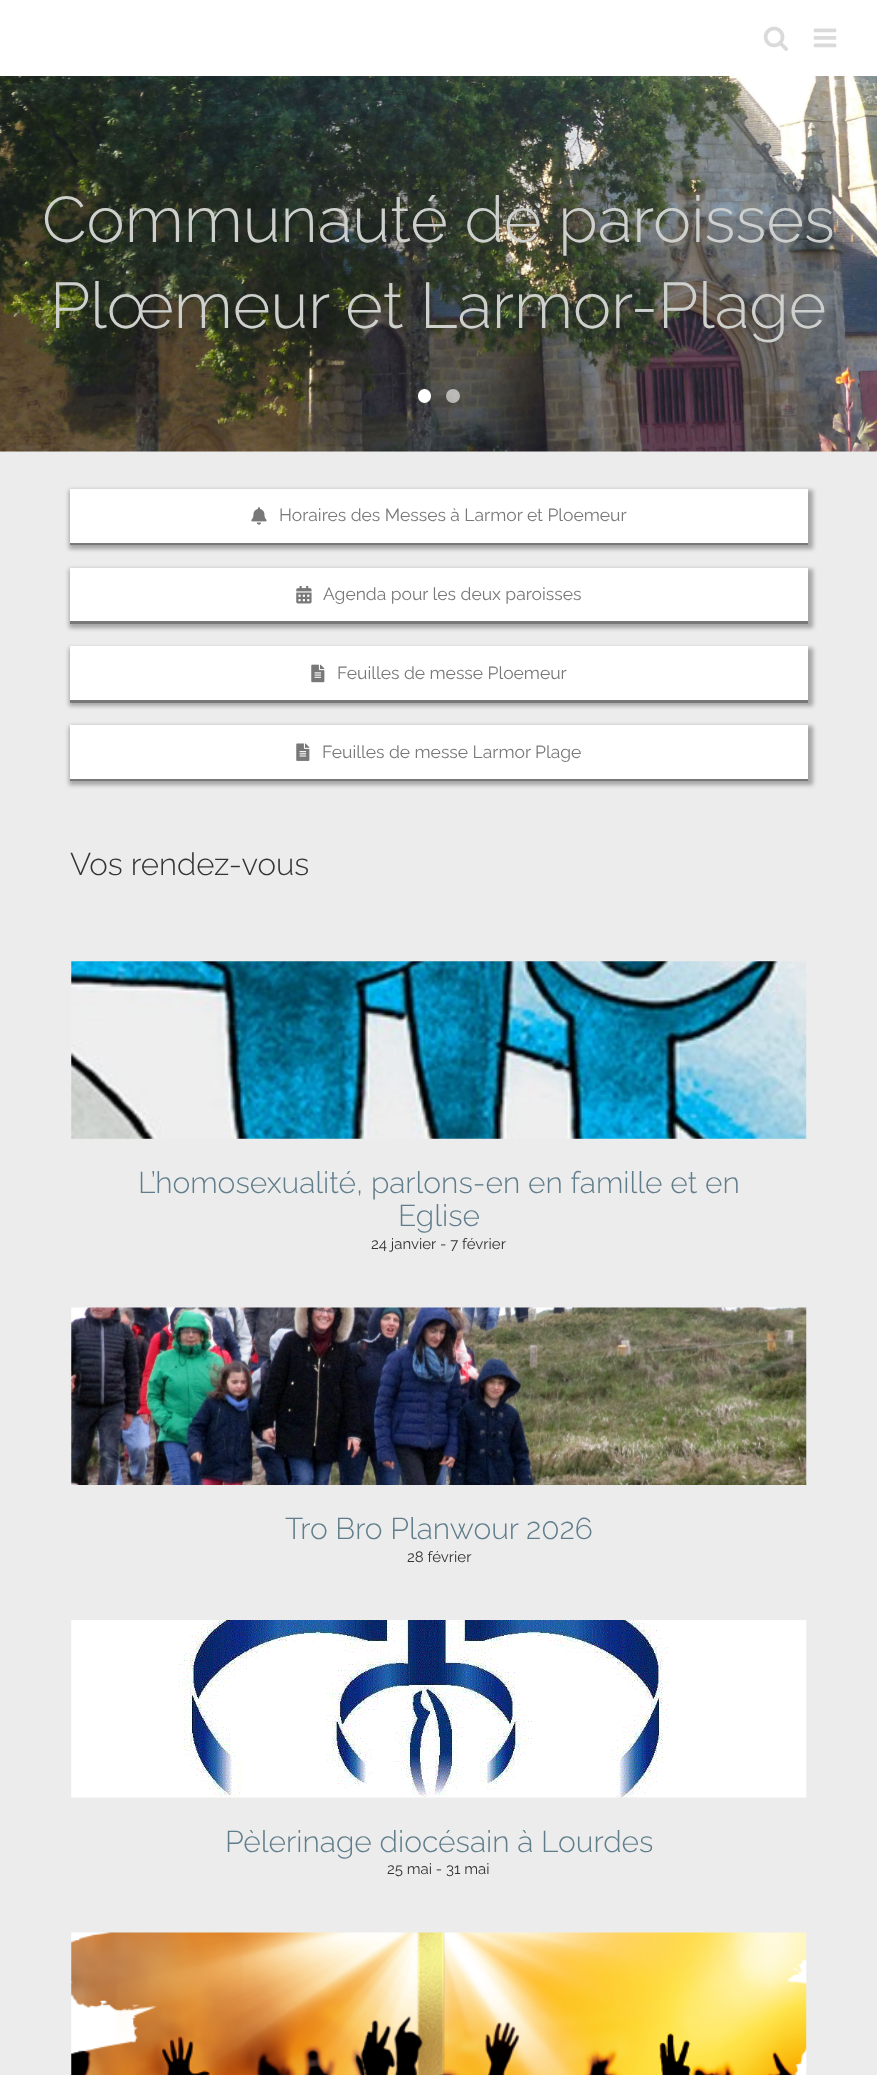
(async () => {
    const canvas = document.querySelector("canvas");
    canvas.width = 877;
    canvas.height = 2075;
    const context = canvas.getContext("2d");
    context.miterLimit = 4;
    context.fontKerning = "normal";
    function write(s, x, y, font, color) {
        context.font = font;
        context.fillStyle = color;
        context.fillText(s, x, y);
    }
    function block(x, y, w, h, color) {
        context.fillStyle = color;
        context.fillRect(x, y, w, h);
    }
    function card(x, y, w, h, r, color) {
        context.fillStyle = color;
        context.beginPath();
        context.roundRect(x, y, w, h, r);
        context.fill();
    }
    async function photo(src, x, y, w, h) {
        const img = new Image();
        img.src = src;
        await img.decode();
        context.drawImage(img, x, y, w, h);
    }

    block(0, 0, 877, 2075, "rgb(236, 236, 236)");
    block(0, 0, 877, 76, "rgb(255, 255, 255)");
    await photo("media/1.png", 763, 26, 25, 25);
    await photo("media/2.png", 813, 28, 24, 20);
    await photo("media/3.png", 0, 76, 877, 376);
    write("Communauté de paroisses", 42, 242, "300 64.5px Raleway", "rgb(206, 208, 206)");
    write("Plœmeur et Larmor-Plage", 50, 328, "300 64.5px Raleway", "rgb(206, 208, 206)");
    card(418, 389, 13, 14, 6.5, "rgb(255, 255, 255)");
    context.fillStyle = "rgba(255, 255, 255, 0.6)";
    context.beginPath();
    context.arc(453, 396, 7, 0, Math.PI * 2);
    context.fill();
    context.fillStyle = "rgba(0, 0, 0, 0.3)";
    context.filter = "blur(2px)";
    context.beginPath();
    context.rect(69, 490, 744, 59);
    context.fill();
    context.filter = "none";
    context.fillStyle = "rgb(120, 120, 120)";
    context.beginPath();
    context.moveTo(70, 542);
    context.lineTo(70, 545);
    context.lineTo(808, 545);
    context.lineTo(808, 491);
    context.lineTo(808, 542);
    context.closePath();
    context.fill();
    block(70, 489, 738, 54, "rgb(255, 255, 255)");
    await photo("media/4.png", 251, 507, 16, 18);
    write("Horaires des Messes à Larmor et Ploemeur", 279, 521, "17.5px Raleway", "rgb(120, 120, 120)");
    context.fillStyle = "rgba(0, 0, 0, 0.3)";
    context.filter = "blur(2px)";
    context.beginPath();
    context.rect(69, 569, 744, 59);
    context.fill();
    context.filter = "none";
    context.fillStyle = "rgb(120, 120, 120)";
    context.beginPath();
    context.moveTo(70, 621);
    context.lineTo(70, 624);
    context.lineTo(808, 624);
    context.lineTo(808, 570);
    context.lineTo(808, 621);
    context.closePath();
    context.fill();
    block(70, 568, 738, 53, "rgb(255, 255, 255)");
    await photo("media/5.png", 296, 585, 16, 19);
    write("Agenda pour les deux paroisses", 323, 600, "17.5px Raleway", "rgb(120, 120, 120)");
    context.fillStyle = "rgba(0, 0, 0, 0.3)";
    context.filter = "blur(2px)";
    context.beginPath();
    context.rect(69, 648, 744, 58);
    context.fill();
    context.filter = "none";
    context.fillStyle = "rgb(120, 120, 120)";
    context.beginPath();
    context.moveTo(70, 700);
    context.lineTo(70, 703);
    context.lineTo(808, 703);
    context.lineTo(808, 649);
    context.lineTo(808, 700);
    context.closePath();
    context.fill();
    block(70, 646, 738, 54, "rgb(255, 255, 255)");
    await photo("media/6.png", 311, 664, 14, 19);
    write("Feuilles de messe Ploemeur", 337, 679, "17.5px Raleway", "rgb(120, 120, 120)");
    context.fillStyle = "rgba(0, 0, 0, 0.3)";
    context.filter = "blur(2px)";
    context.beginPath();
    context.rect(69, 726, 744, 59);
    context.fill();
    context.filter = "none";
    context.fillStyle = "rgb(120, 120, 120)";
    context.beginPath();
    context.moveTo(70, 779);
    context.lineTo(70, 781);
    context.lineTo(808, 781);
    context.lineTo(808, 728);
    context.lineTo(808, 779);
    context.closePath();
    context.fill();
    block(70, 725, 738, 54, "rgb(255, 255, 255)");
    await photo("media/7.png", 296, 743, 14, 18);
    write("Feuilles de messe Larmor Plage", 322, 758, "17.5px Raleway", "rgb(120, 120, 120)");
    write("Vos rendez-vous", 70, 875, "300 31.25px Raleway", "rgb(51, 51, 51)");
    await photo("media/8.png", 71, 961, 736, 178);
    write("L’homosexualité, parlons-en en famille et en", 138, 1193, "300 30px Raleway", "rgb(96, 125, 139)");
    write("Eglise", 398, 1226, "300 30px Raleway", "rgb(96, 125, 139)");
    write("24 janvier", 371, 1249, "15px Raleway", "rgb(51, 51, 51)");
    write("- 7 février", 440, 1249, "15px Raleway", "rgb(51, 51, 51)");
    await photo("media/9.png", 71, 1307, 736, 178);
    write("Tro Bro Planwour 2026", 285, 1539, "300 30px Raleway", "rgb(96, 125, 139)");
    write("28 février", 407, 1562, "15px Raleway", "rgb(51, 51, 51)");
    await photo("media/10.png", 71, 1620, 736, 178);
    write("Pèlerinage diocésain à Lourdes", 225, 1852, "300 30px Raleway", "rgb(96, 125, 139)");
    write("25 mai - 31 mai", 387, 1874, "15px Raleway", "rgb(51, 51, 51)");
    await photo("media/11.png", 71, 1932, 736, 143);
})();
